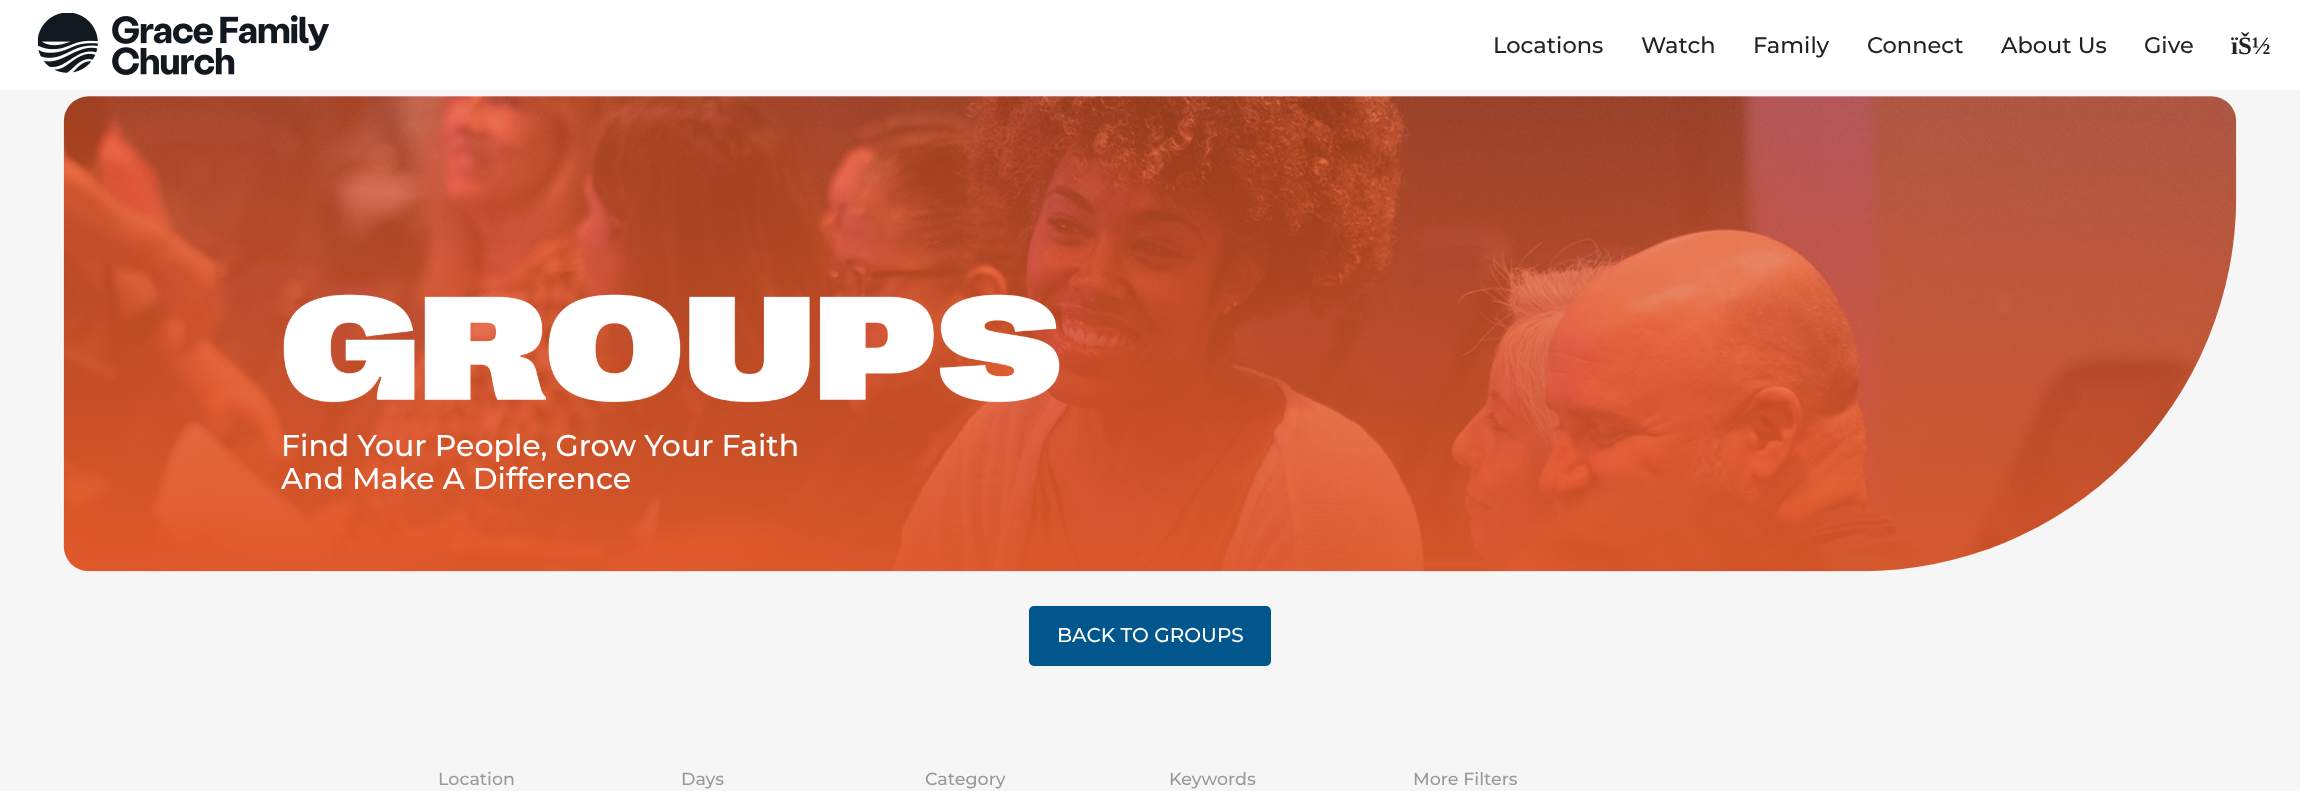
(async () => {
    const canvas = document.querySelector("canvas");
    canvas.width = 2300;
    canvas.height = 791;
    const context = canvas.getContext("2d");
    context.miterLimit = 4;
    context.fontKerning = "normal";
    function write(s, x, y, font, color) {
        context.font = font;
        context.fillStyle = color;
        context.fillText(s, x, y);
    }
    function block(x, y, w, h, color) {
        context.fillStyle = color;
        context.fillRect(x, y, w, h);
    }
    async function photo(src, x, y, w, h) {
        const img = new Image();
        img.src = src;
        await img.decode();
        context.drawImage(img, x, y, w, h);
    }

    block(0, 0, 2300, 791, "rgb(246, 246, 246)");
    block(0, 0, 2300, 90, "rgb(255, 255, 255)");
    await photo("media/1.png", 38, 13, 291, 62);
    write("Locations", 1493, 53, "500 22.5px Montserrat", "rgb(34, 34, 34)");
    write("Watch", 1641, 53, "500 22.5px Montserrat", "rgb(34, 34, 34)");
    write("Family", 1753, 53, "500 22.5px Montserrat", "rgb(34, 34, 34)");
    write("Connect", 1867, 53, "500 22.5px Montserrat", "rgb(34, 34, 34)");
    write("About Us", 2001, 53, "500 22.5px Montserrat", "rgb(34, 34, 34)");
    write("Give", 2144, 53, "500 22.5px Montserrat", "rgb(34, 34, 34)");
    write("ïŠ½", 2231, 54, "bold 25px Liberation Serif", "rgb(34, 34, 34)");
    await photo("media/2.png", 63, 96, 2174, 476);
    await photo("media/3.png", 283, 294, 777, 109);
    write("Find Your People, Grow Your Faith", 281, 456, "500 30px Montserrat", "rgb(255, 255, 255)");
    write("And Make A Difference", 281, 489, "500 30px Montserrat", "rgb(255, 255, 255)");
    context.fillStyle = "rgb(1, 86, 141)";
    context.beginPath();
    context.roundRect(1030.5, 607.5, 239, 57, 3.5);
    context.fill();
    context.strokeStyle = "rgb(1, 86, 141)";
    context.lineWidth = 3;
    context.stroke();
    write("BACK TO GROUPS", 1057, 642, "500 20px Montserrat", "rgb(255, 255, 255)");
    write("Location", 438, 785, "500 17.5px Montserrat", "rgb(153, 153, 153)");
    write("Days", 681, 785, "500 17.5px Montserrat", "rgb(153, 153, 153)");
    write("Category", 925, 785, "500 17.5px Montserrat", "rgb(153, 153, 153)");
    write("Keywords", 1169, 785, "500 17.5px Montserrat", "rgb(153, 153, 153)");
    write("More Filters", 1413, 785, "500 17.5px Montserrat", "rgb(153, 153, 153)");
})();
